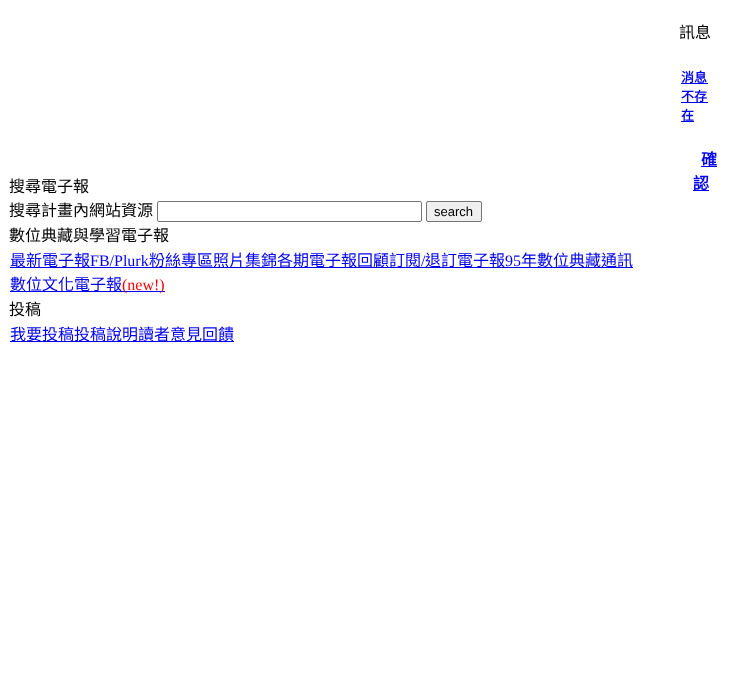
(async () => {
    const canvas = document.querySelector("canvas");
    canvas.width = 755;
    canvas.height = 690;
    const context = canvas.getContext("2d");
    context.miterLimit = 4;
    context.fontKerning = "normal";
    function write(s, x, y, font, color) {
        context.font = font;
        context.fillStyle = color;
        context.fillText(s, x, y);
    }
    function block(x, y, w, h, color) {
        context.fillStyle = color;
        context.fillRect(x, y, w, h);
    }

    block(0, 0, 755, 690, "rgb(255, 255, 255)");
    write("訊息", 679, 38, "16px Noto Sans CJK TC", "rgb(0, 0, 0)");
    block(681, 83, 27, 1, "rgb(0, 0, 238)");
    write("消息", 681, 82, "bold 13px Noto Sans CJK TC", "rgb(0, 0, 238)");
    block(681, 102, 27, 1, "rgb(0, 0, 238)");
    write("不存", 681, 101, "bold 13px Noto Sans CJK TC", "rgb(0, 0, 238)");
    write("在", 681, 120, "bold 13px Noto Sans CJK TC", "rgb(0, 0, 238)");
    block(681, 121, 13, 1, "rgb(0, 0, 238)");
    block(701, 166, 16, 1, "rgb(0, 0, 238)");
    write("確", 701, 165, "bold 16px Noto Sans CJK TC", "rgb(0, 0, 238)");
    block(693, 190, 16, 1, "rgb(0, 0, 238)");
    write("認", 693, 189, "bold 16px Noto Sans CJK TC", "rgb(0, 0, 238)");
    write("搜尋電子報", 9, 192, "16px Noto Sans CJK TC", "rgb(0, 0, 0)");
    write("搜尋計畫內網站資源", 9, 216, "16px Noto Sans CJK TC", "rgb(0, 0, 0)");
    context.beginPath();
    context.roundRect(157.5, 201.5, 264, 20, 1.5);
    context.strokeStyle = "rgb(118, 118, 118)";
    context.stroke();
    context.fillStyle = "rgb(239, 239, 239)";
    context.beginPath();
    context.roundRect(426.5, 201.5, 55, 20, 1.5);
    context.fill();
    context.stroke();
    write("search", 434, 216, "13px Liberation Sans", "rgb(0, 0, 0)");
    write("數位典藏與學習電子報", 9, 241, "16px Noto Sans CJK TC", "rgb(0, 0, 0)");
    block(10, 267, 623, 1, "rgb(0, 0, 238)");
    write("最新電子報", 10, 266, "16px Noto Sans CJK TC", "rgb(0, 0, 238)");
    write("FB/Plurk", 90, 266, "16px Liberation Serif", "rgb(0, 0, 238)");
    write("粉絲專區照片集錦各期電子報回顧訂閱", 149, 266, "16px Noto Sans CJK TC", "rgb(0, 0, 238)");
    write("/", 421, 266, "16px Liberation Serif", "rgb(0, 0, 238)");
    write("退訂電子報", 425, 266, "16px Noto Sans CJK TC", "rgb(0, 0, 238)");
    write("95", 505, 266, "16px Liberation Serif", "rgb(0, 0, 238)");
    write("年數位典藏通訊", 521, 266, "16px Noto Sans CJK TC", "rgb(0, 0, 238)");
    block(10, 291, 155, 1, "rgb(0, 0, 238)");
    write("數位文化電子報", 10, 290, "16px Noto Sans CJK TC", "rgb(0, 0, 238)");
    write("(new!)", 122, 290, "16px Liberation Serif", "rgb(255, 0, 0)");
    write("投稿", 9, 315, "16px Noto Sans CJK TC", "rgb(0, 0, 0)");
    block(10, 341, 224, 1, "rgb(0, 0, 238)");
    write("我要投稿投稿說明讀者意見回饋", 10, 340, "16px Noto Sans CJK TC", "rgb(0, 0, 238)");
})();
